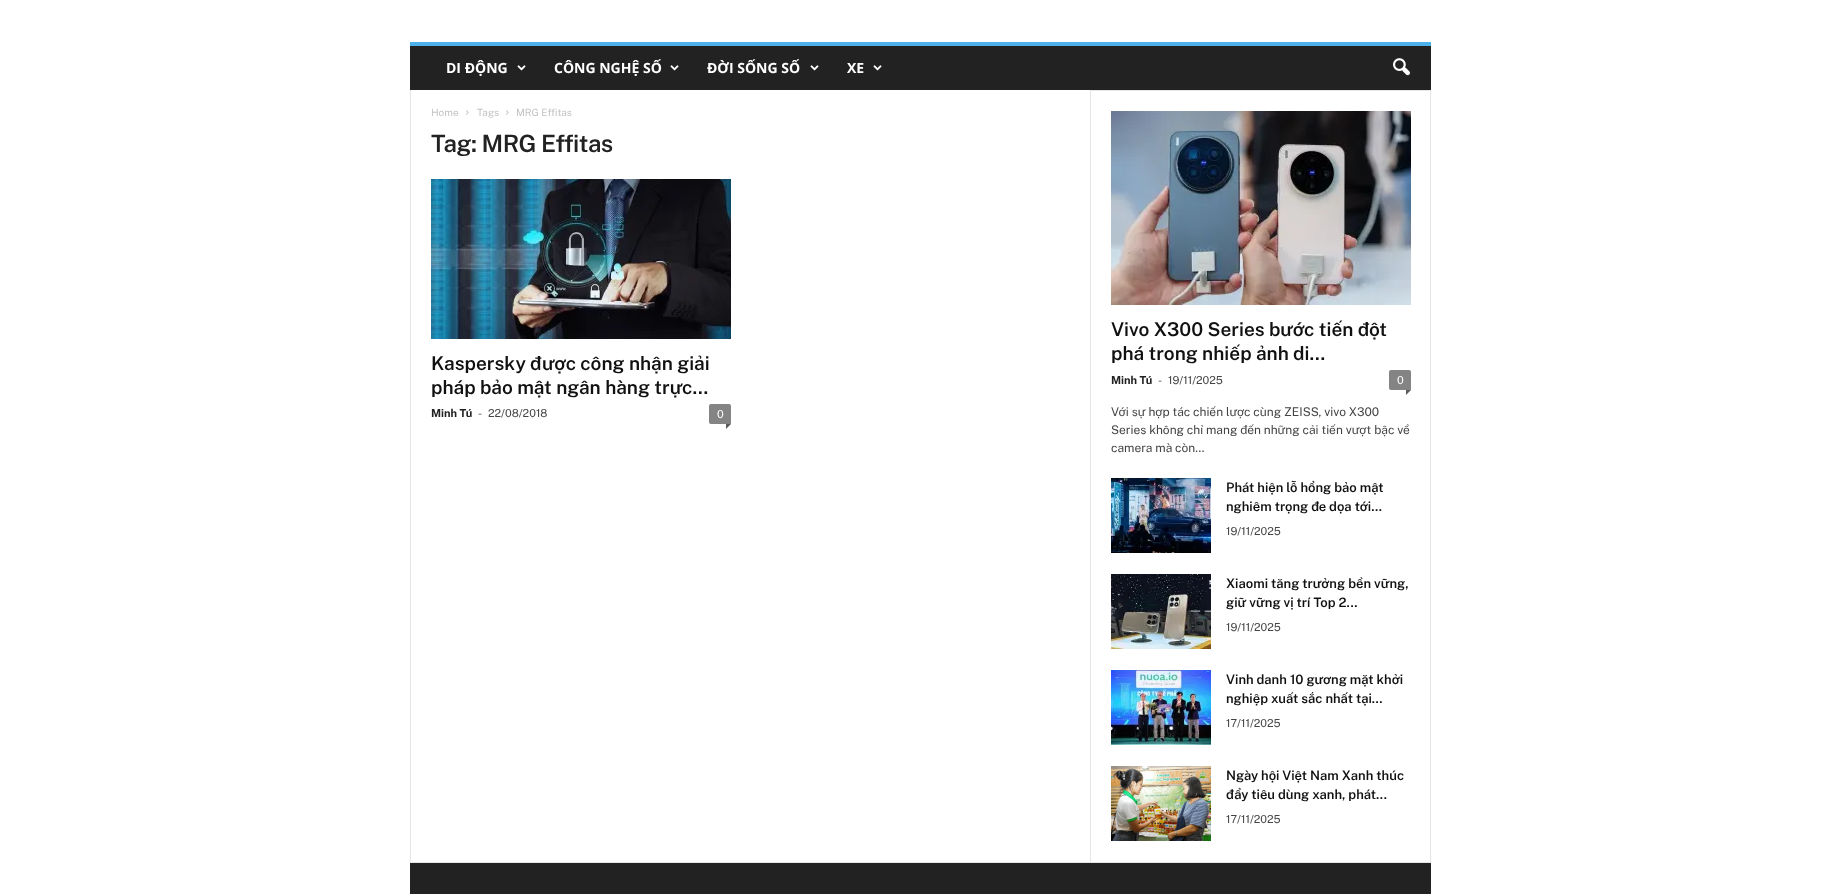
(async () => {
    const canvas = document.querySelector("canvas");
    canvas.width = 1841;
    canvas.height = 894;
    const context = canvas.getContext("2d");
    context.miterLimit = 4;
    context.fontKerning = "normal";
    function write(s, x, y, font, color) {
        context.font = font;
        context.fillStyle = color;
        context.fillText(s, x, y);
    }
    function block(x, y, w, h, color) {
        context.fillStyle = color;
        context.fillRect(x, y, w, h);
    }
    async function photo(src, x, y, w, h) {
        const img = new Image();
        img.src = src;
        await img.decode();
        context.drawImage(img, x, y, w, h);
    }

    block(0, 0, 1841, 894, "rgb(255, 255, 255)");
    block(410, 46, 1021, 44, "rgb(34, 34, 34)");
    block(410, 42, 1021, 4, "rgb(77, 178, 236)");
    write("DI ĐỘNG", 446, 73, "bold 14px Open Sans", "rgb(255, 255, 255)");
    await photo("media/1.png", 517, 65, 9, 6);
    write("CÔNG NGHỆ SỐ", 554, 73, "bold 14px Open Sans", "rgb(255, 255, 255)");
    await photo("media/1.png", 670, 65, 9, 6);
    write("ĐỜI SỐNG SỐ", 707, 73, "bold 14px Open Sans", "rgb(255, 255, 255)");
    await photo("media/1.png", 810, 65, 9, 6);
    write("XE", 847, 73, "bold 14px Open Sans", "rgb(255, 255, 255)");
    await photo("media/1.png", 873, 65, 9, 6);
    await photo("media/2.png", 1393, 58, 17, 18);
    block(410, 862, 1021, 1, "rgb(230, 230, 230)");
    block(410, 90, 1, 772, "rgb(230, 230, 230)");
    write("Home", 431, 116, "10px Public Sans", "rgb(195, 195, 195)");
    await photo("media/3.png", 466, 110, 3, 5);
    write("Tags", 477, 116, "10px Public Sans", "rgb(195, 195, 195)");
    await photo("media/3.png", 506, 110, 3, 5);
    write("MRG Effitas", 516, 116, "10px Public Sans", "rgb(195, 195, 195)");
    context.letterSpacing = "-0.5px";
    write("Tag: MRG Effitas", 431, 152, "600 24px Public Sans", "rgb(34, 34, 34)");
    await photo("media/4.png", 431, 179, 300, 160);
    context.letterSpacing = "0px";
    write("Kaspersky được công nhận giải", 431, 370, "600 19px Public Sans", "rgb(17, 17, 17)");
    write("pháp bảo mật ngân hàng trực...", 431, 394, "600 19px Public Sans", "rgb(17, 17, 17)");
    write("Minh Tú", 431, 417, "bold 11px Public Sans", "rgb(34, 34, 34)");
    write("-", 478, 417, "11px Public Sans", "rgb(68, 68, 68)");
    write("22/08/2018", 488, 417, "11px Public Sans", "rgb(68, 68, 68)");
    context.fillStyle = "rgb(132, 132, 132)";
    context.beginPath();
    context.roundRect(709, 404, 22, 20, [2, 2, 0, 2]);
    context.fill();
    write("0", 717, 418, "11px Public Sans", "rgb(255, 255, 255)");
    context.fillStyle = "rgb(91, 91, 91)";
    context.beginPath();
    context.moveTo(726, 424);
    context.lineTo(731, 424);
    context.lineTo(726, 429);
    context.closePath();
    context.fill();
    block(1090, 90, 1, 772, "rgb(230, 230, 230)");
    block(1091, 90, 339, 1, "rgb(230, 230, 230)");
    await photo("media/5.png", 1111, 111, 300, 194);
    write("Vivo X300 Series bước tiến đột", 1111, 336, "600 19px Public Sans", "rgb(17, 17, 17)");
    write("phá trong nhiếp ảnh di...", 1111, 360, "600 19px Public Sans", "rgb(17, 17, 17)");
    write("Minh Tú", 1111, 384, "bold 11px Public Sans", "rgb(34, 34, 34)");
    write("-", 1158, 384, "11px Public Sans", "rgb(68, 68, 68)");
    write("19/11/2025", 1168, 384, "11px Public Sans", "rgb(68, 68, 68)");
    context.fillStyle = "rgb(132, 132, 132)";
    context.beginPath();
    context.roundRect(1389, 370, 22, 20, [2, 2, 0, 2]);
    context.fill();
    write("0", 1397, 384, "11px Public Sans", "rgb(255, 255, 255)");
    context.fillStyle = "rgb(91, 91, 91)";
    context.beginPath();
    context.moveTo(1406, 390);
    context.lineTo(1411, 390);
    context.lineTo(1406, 395);
    context.closePath();
    context.fill();
    write("Với sự hợp tác chiến lược cùng ZEISS, vivo X300", 1111, 416, "12px Public Sans", "rgb(68, 68, 68)");
    write("Series không chỉ mang đến những cải tiến vượt bậc về", 1111, 434, "12px Public Sans", "rgb(68, 68, 68)");
    write("camera mà còn...", 1111, 452, "12px Public Sans", "rgb(68, 68, 68)");
    await photo("media/6.png", 1111, 478, 100, 75);
    write("Phát hiện lỗ hổng bảo mật", 1226, 492, "600 13px Public Sans", "rgb(17, 17, 17)");
    write("nghiêm trọng đe dọa tới...", 1226, 511, "600 13px Public Sans", "rgb(17, 17, 17)");
    write("19/11/2025", 1226, 535, "11px Public Sans", "rgb(68, 68, 68)");
    await photo("media/7.png", 1111, 574, 100, 75);
    write("Xiaomi tăng trưởng bền vững,", 1226, 588, "600 13px Public Sans", "rgb(17, 17, 17)");
    write("giữ vững vị trí Top 2...", 1226, 607, "600 13px Public Sans", "rgb(17, 17, 17)");
    write("19/11/2025", 1226, 631, "11px Public Sans", "rgb(68, 68, 68)");
    await photo("media/8.png", 1111, 670, 100, 75);
    write("Vinh danh 10 gương mặt khởi", 1226, 684, "600 13px Public Sans", "rgb(17, 17, 17)");
    write("nghiệp xuất sắc nhất tại...", 1226, 703, "600 13px Public Sans", "rgb(17, 17, 17)");
    write("17/11/2025", 1226, 727, "11px Public Sans", "rgb(68, 68, 68)");
    await photo("media/9.png", 1111, 766, 100, 75);
    write("Ngày hội Việt Nam Xanh thúc", 1226, 780, "600 13px Public Sans", "rgb(17, 17, 17)");
    write("đẩy tiêu dùng xanh, phát...", 1226, 799, "600 13px Public Sans", "rgb(17, 17, 17)");
    write("17/11/2025", 1226, 823, "11px Public Sans", "rgb(68, 68, 68)");
    block(1430, 90, 1, 772, "rgb(230, 230, 230)");
    block(410, 863, 1021, 31, "rgb(34, 34, 34)");
})();
